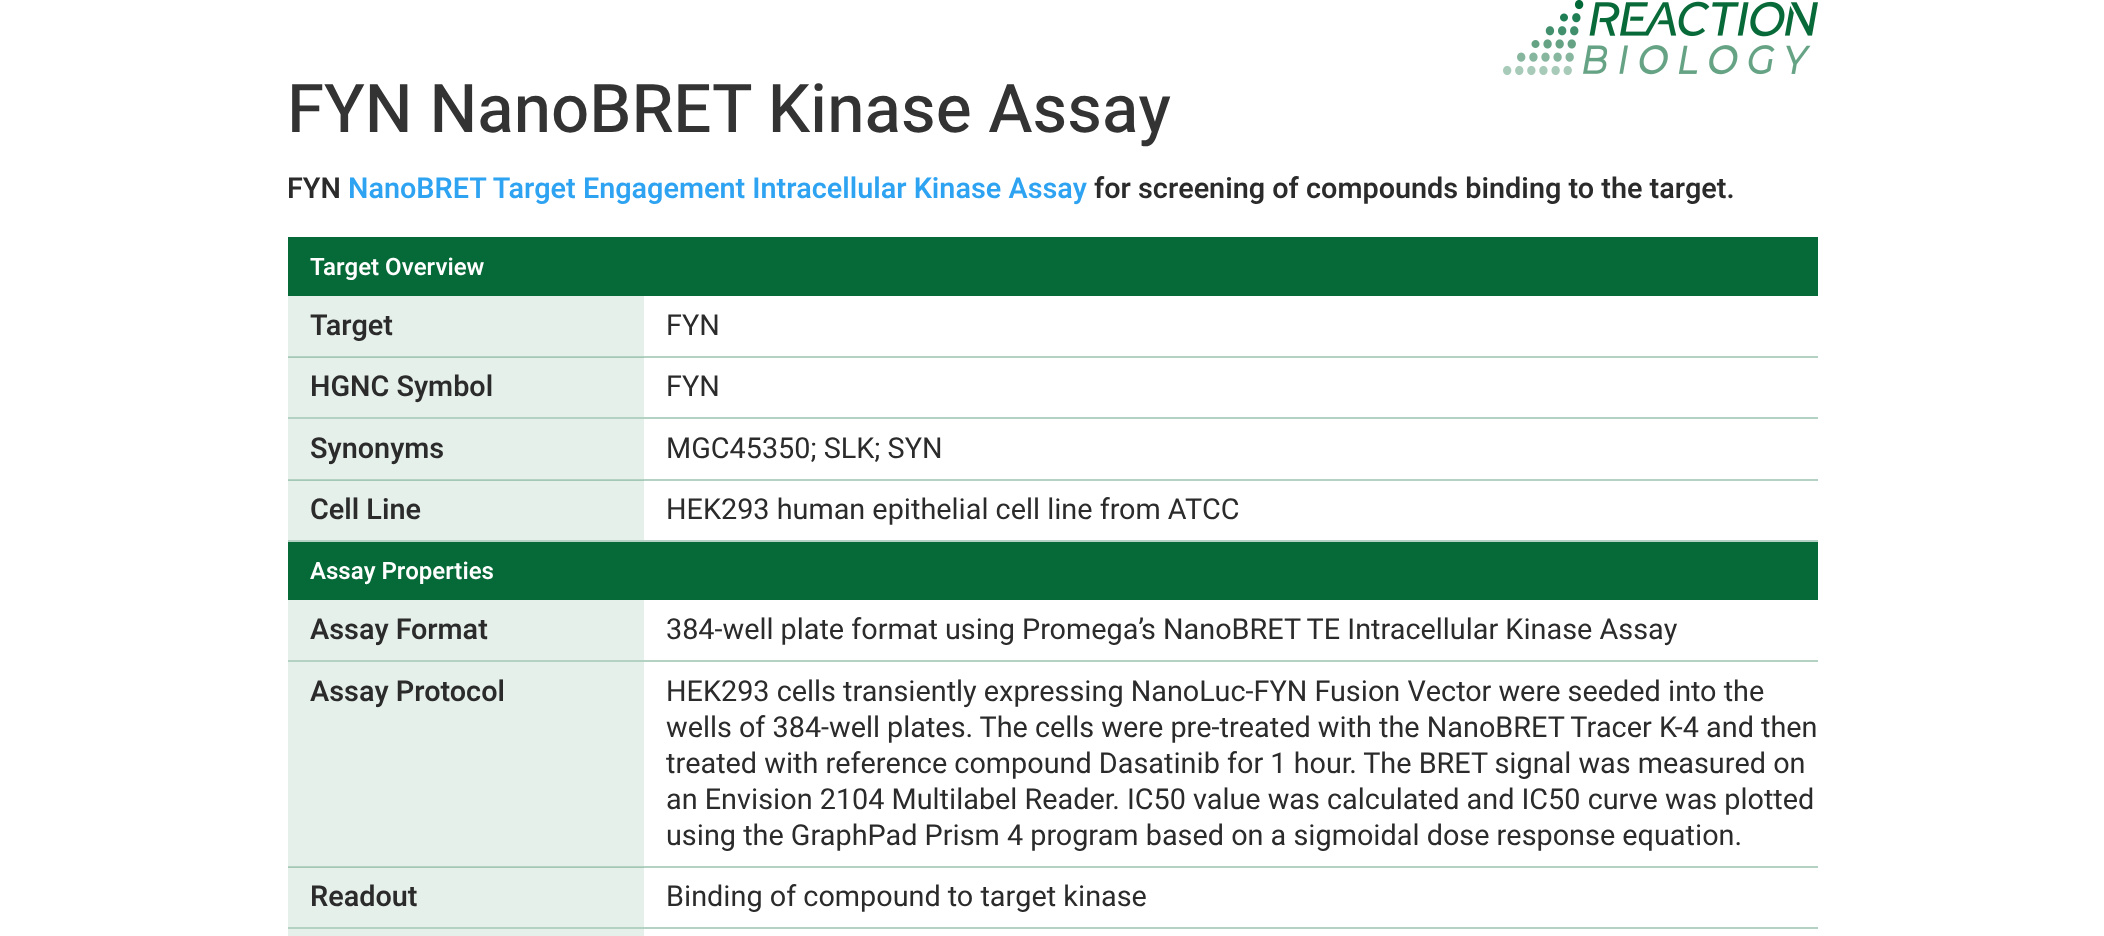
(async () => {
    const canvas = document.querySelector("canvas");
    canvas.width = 2104;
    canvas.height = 936;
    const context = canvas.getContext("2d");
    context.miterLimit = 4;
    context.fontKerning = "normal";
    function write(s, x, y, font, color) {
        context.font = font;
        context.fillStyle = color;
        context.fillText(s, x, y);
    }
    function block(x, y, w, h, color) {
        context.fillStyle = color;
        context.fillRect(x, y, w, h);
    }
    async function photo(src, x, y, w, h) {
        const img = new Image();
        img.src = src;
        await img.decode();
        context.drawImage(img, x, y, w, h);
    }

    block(0, 0, 2104, 936, "rgb(255, 255, 255)");
    block(288, 868, 356, 59, "rgb(230, 240, 235)");
    block(288, 481, 356, 59, "rgb(230, 240, 235)");
    block(288, 358, 356, 59, "rgb(230, 240, 235)");
    await photo("media/1.png", 1503, 0, 315, 75);
    write("FYN NanoBRET Kinase Assay", 287, 132, "500 67.25px Heebo", "rgb(51, 51, 51)");
    write("FYN", 287, 198, "600 28.8px Heebo", "rgb(43, 43, 43)");
    write("NanoBRET Target Engagement Intracellular Kinase Assay", 348, 198, "600 28.8px Heebo", "rgb(46, 163, 242)");
    write("for screening of compounds binding to the target.", 1094, 198, "600 28.8px Heebo", "rgb(43, 43, 43)");
    block(288, 237, 1530, 59, "rgb(6, 105, 56)");
    write("Target Overview", 310, 275, "600 24px Heebo", "rgb(255, 255, 255)");
    block(288, 356, 1530, 2, "rgb(180, 210, 195)");
    block(288, 357, 356, 1, "rgb(163, 200, 181)");
    block(288, 296, 356, 60, "rgb(230, 240, 235)");
    write("Target", 310, 335, "600 28.8px Heebo", "rgb(43, 43, 43)");
    write("FYN", 666, 335, "28.8px Heebo", "rgb(43, 43, 43)");
    block(288, 417, 1530, 2, "rgb(180, 210, 195)");
    write("HGNC Symbol", 310, 396, "600 28.8px Heebo", "rgb(43, 43, 43)");
    write("FYN", 666, 396, "28.8px Heebo", "rgb(43, 43, 43)");
    block(288, 479, 1530, 2, "rgb(180, 210, 195)");
    block(288, 480, 356, 1, "rgb(163, 200, 181)");
    block(288, 419, 356, 60, "rgb(230, 240, 235)");
    write("Synonyms", 310, 458, "600 28.8px Heebo", "rgb(43, 43, 43)");
    write("MGC45350; SLK; SYN", 666, 458, "28.8px Heebo", "rgb(43, 43, 43)");
    block(288, 540, 1530, 2, "rgb(180, 210, 195)");
    write("Cell Line", 310, 519, "600 28.8px Heebo", "rgb(43, 43, 43)");
    write("HEK293 human epithelial cell line from ATCC", 666, 519, "28.8px Heebo", "rgb(43, 43, 43)");
    block(288, 542, 1530, 58, "rgb(6, 105, 56)");
    write("Assay Properties", 310, 579, "600 24px Heebo", "rgb(255, 255, 255)");
    block(288, 660, 1530, 2, "rgb(180, 210, 195)");
    block(288, 600, 356, 60, "rgb(230, 240, 235)");
    write("Assay Format", 310, 639, "600 28.8px Heebo", "rgb(43, 43, 43)");
    write("384-well plate format using Promega’s NanoBRET TE Intracellular Kinase Assay", 666, 639, "28.8px Heebo", "rgb(43, 43, 43)");
    block(288, 866, 1530, 2, "rgb(180, 210, 195)");
    block(288, 867, 356, 1, "rgb(163, 200, 181)");
    block(288, 662, 356, 204, "rgb(230, 240, 235)");
    write("Assay Protocol", 310, 701, "600 28.8px Heebo", "rgb(43, 43, 43)");
    write("HEK293 cells transiently expressing NanoLuc-FYN Fusion Vector were seeded into the", 666, 701, "28.8px Heebo", "rgb(43, 43, 43)");
    write("wells of 384-well plates. The cells were pre-treated with the NanoBRET Tracer K-4 and then", 666, 737, "28.8px Heebo", "rgb(43, 43, 43)");
    write("treated with reference compound Dasatinib for 1 hour. The BRET signal was measured on", 666, 773, "28.8px Heebo", "rgb(43, 43, 43)");
    write("an Envision 2104 Multilabel Reader. IC50 value was calculated and IC50 curve was plotted", 666, 809, "28.8px Heebo", "rgb(43, 43, 43)");
    write("using the GraphPad Prism 4 program based on a sigmoidal dose response equation.", 666, 845, "28.8px Heebo", "rgb(43, 43, 43)");
    block(288, 927, 1530, 2, "rgb(180, 210, 195)");
    write("Readout", 310, 906, "600 28.8px Heebo", "rgb(43, 43, 43)");
    write("Binding of compound to target kinase", 666, 906, "28.8px Heebo", "rgb(43, 43, 43)");
    block(288, 929, 356, 7, "rgb(230, 240, 235)");
})();
